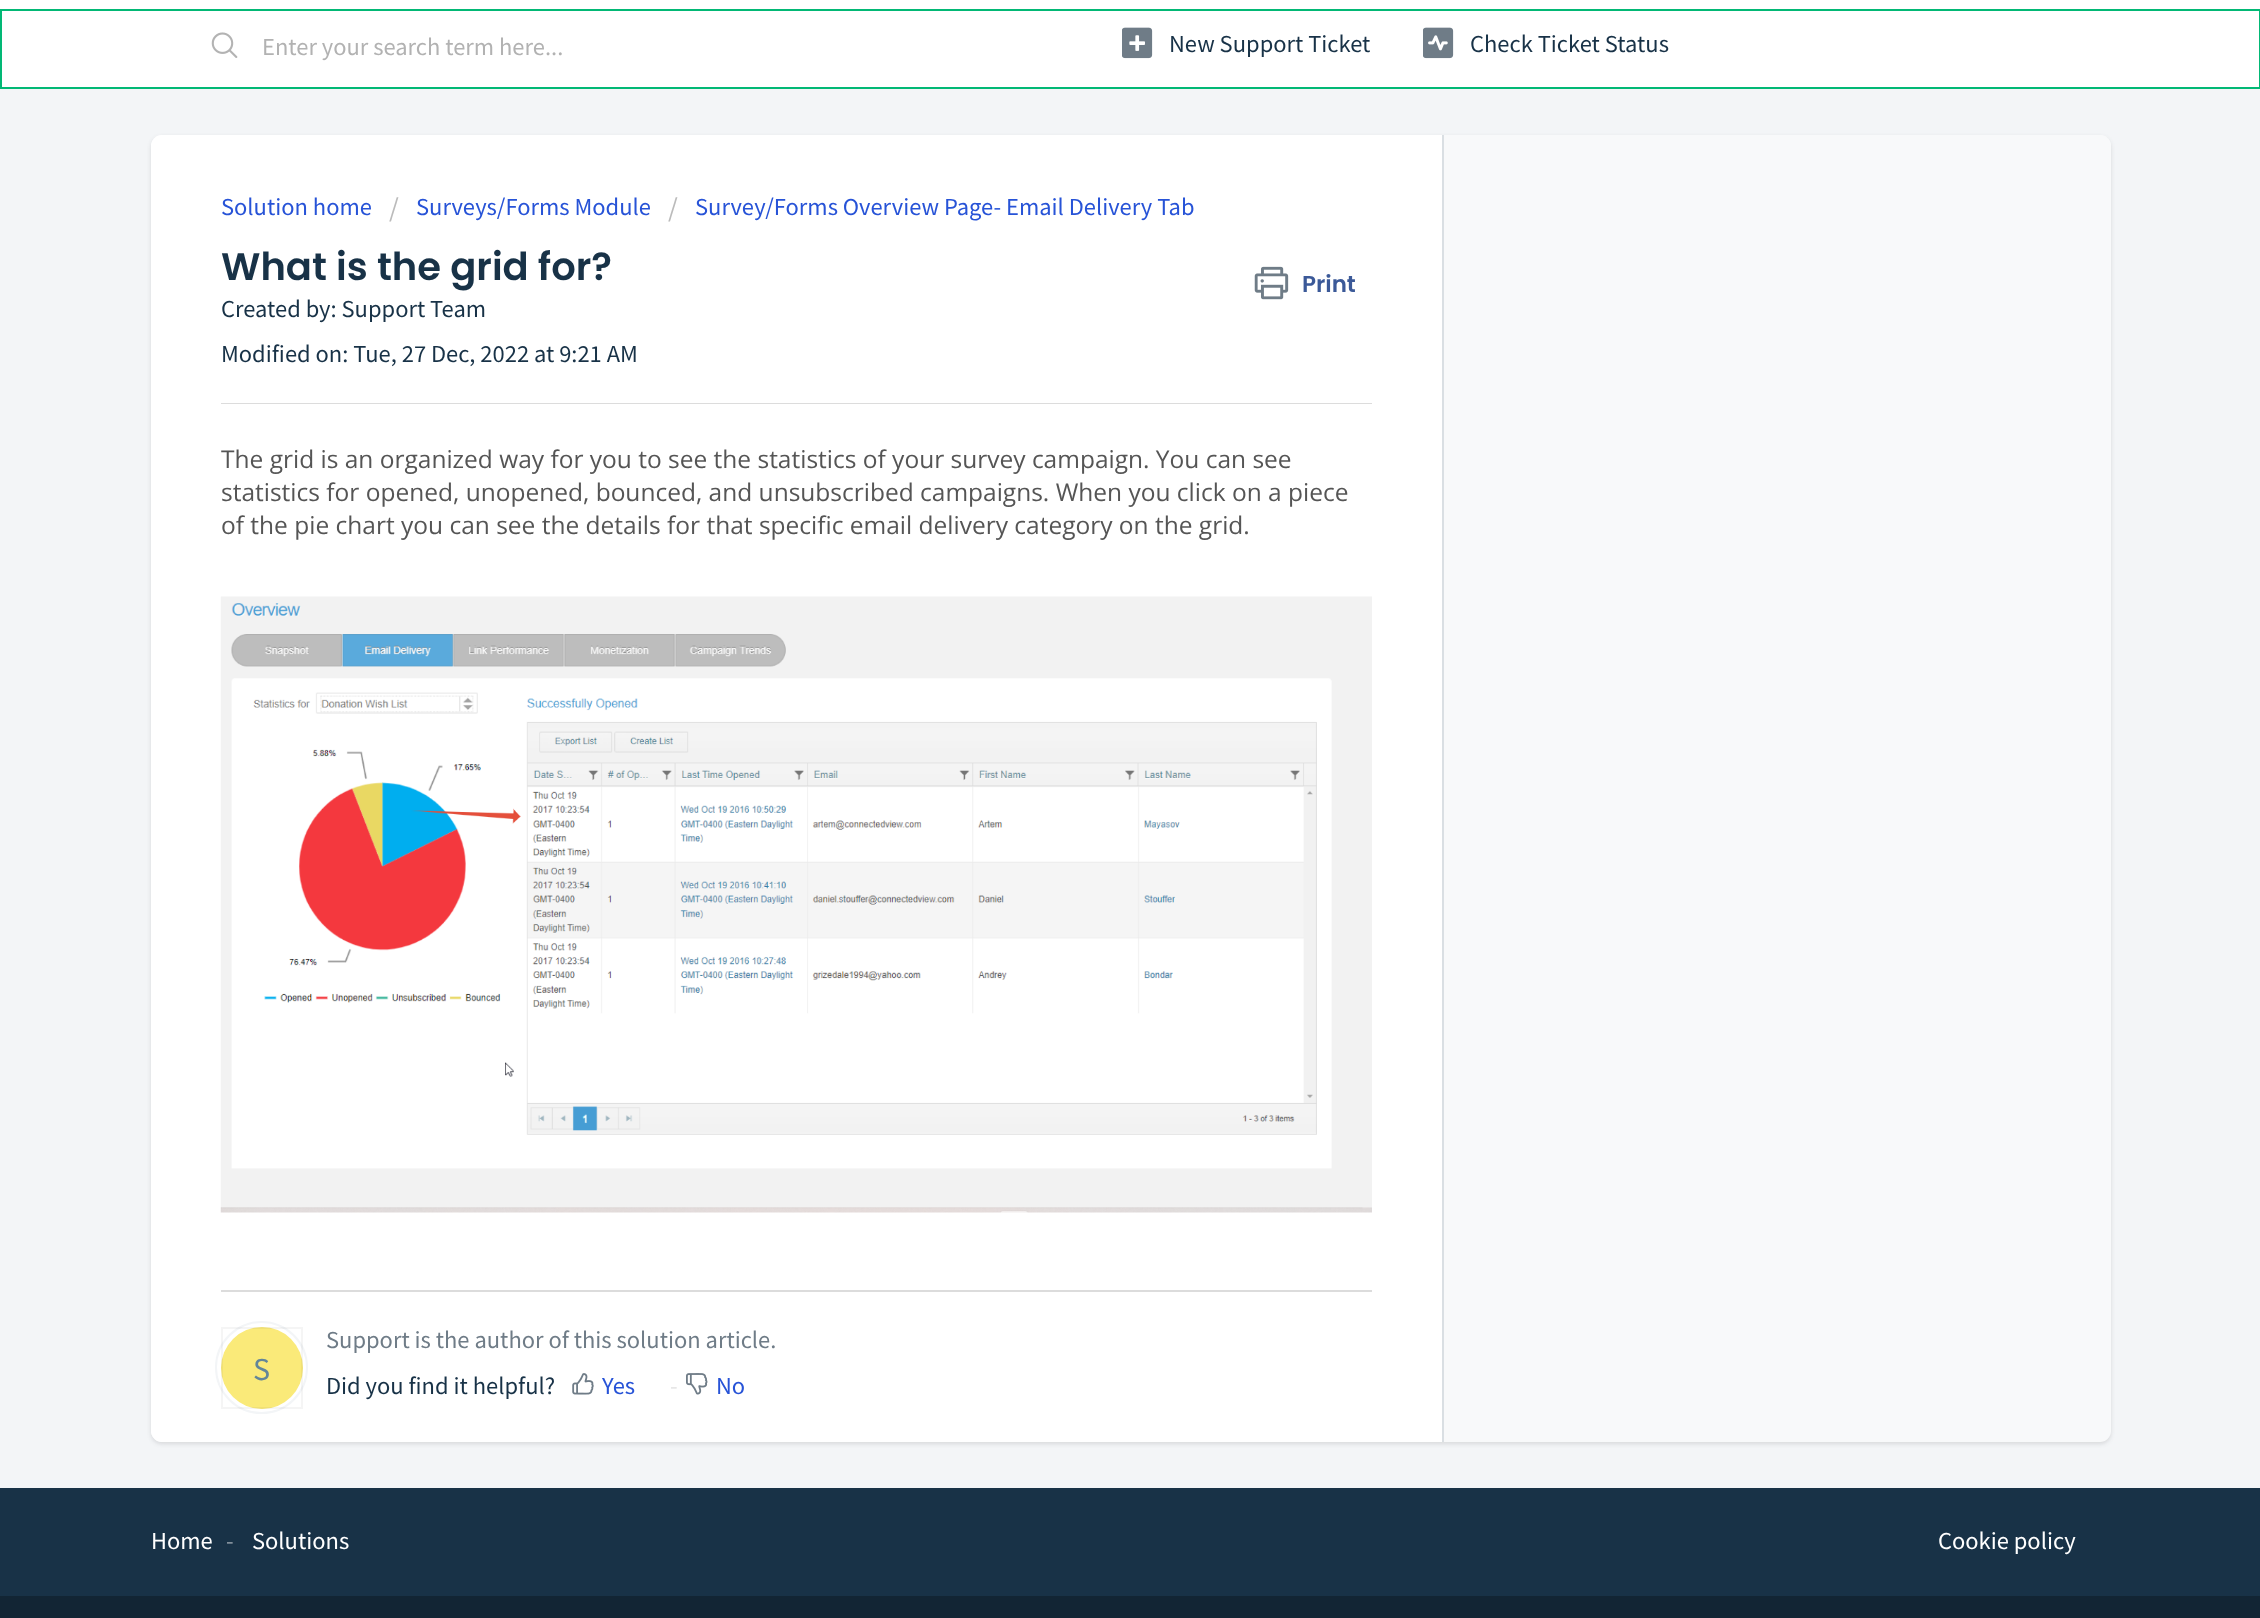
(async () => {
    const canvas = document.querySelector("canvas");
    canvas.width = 2260;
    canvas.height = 1618;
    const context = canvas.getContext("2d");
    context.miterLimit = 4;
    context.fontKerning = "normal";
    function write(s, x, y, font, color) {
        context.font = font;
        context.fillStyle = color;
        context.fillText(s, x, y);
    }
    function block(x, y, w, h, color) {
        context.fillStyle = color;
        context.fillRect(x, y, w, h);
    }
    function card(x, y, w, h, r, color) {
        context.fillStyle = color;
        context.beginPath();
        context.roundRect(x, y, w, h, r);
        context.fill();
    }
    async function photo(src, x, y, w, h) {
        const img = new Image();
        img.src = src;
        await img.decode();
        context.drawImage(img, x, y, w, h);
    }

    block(0, 0, 2260, 1618, "rgb(243, 245, 247)");
    block(0, 0, 2260, 9, "rgb(255, 255, 255)");
    context.beginPath();
    context.rect(1, 10, 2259, 78);
    context.fill();
    context.strokeStyle = "rgb(2, 184, 117)";
    context.lineWidth = 2;
    context.stroke();
    await photo("media/1.png", 211, 32, 27, 26);
    write("Enter your search term here...", 262, 55, "24.5px Source Sans Pro", "rgb(178, 178, 178)");
    await photo("media/2.png", 1122, 27, 31, 32);
    write("New Support Ticket", 1169, 52, "24.5px Source Sans Pro", "rgb(24, 50, 71)");
    await photo("media/3.png", 1423, 27, 31, 32);
    write("Check Ticket Status", 1470, 52, "24.5px Source Sans Pro", "rgb(24, 50, 71)");
    context.fillStyle = "rgba(63, 63, 68, 0.15)";
    context.filter = "blur(2px)";
    context.beginPath();
    context.roundRect(151, 137, 1960, 1307, 11);
    context.fill();
    context.filter = "none";
    card(151, 135, 1960, 1307, 11, "rgb(248, 249, 250)");
    context.beginPath();
    context.roundRect(1444, 135, 667, 35, [0, 11, 11, 0]);
    context.fill();
    context.fillStyle = "rgb(255, 255, 255)";
    context.beginPath();
    context.roundRect(151, 135, 1293, 1307, [11, 0, 0, 11]);
    context.fill();
    block(1442, 135, 2, 1307, "rgb(218, 223, 227)");
    write("Solution home", 221, 215, "24.5px Source Sans Pro", "rgb(39, 83, 215)");
    write("/", 389, 217, "28px Source Sans Pro", "rgb(187, 187, 187)");
    write("Surveys/Forms Module", 416, 215, "24.5px Source Sans Pro", "rgb(39, 83, 215)");
    write("/", 668, 217, "28px Source Sans Pro", "rgb(187, 187, 187)");
    write("Survey/Forms Overview Page- Email Delivery Tab", 695, 215, "24.5px Source Sans Pro", "rgb(39, 83, 215)");
    write("What is the grid for?", 221, 280, "600 38.5px Poppins", "rgb(24, 50, 71)");
    await photo("media/4.png", 1254, 266, 35, 34);
    write("Print", 1302, 292, "600 23px Poppins", "rgb(59, 89, 152)");
    write("Created by: Support Team", 221, 317, "24.5px Source Sans Pro", "rgb(24, 50, 71)");
    write("Modified on: Tue, 27 Dec, 2022 at 9:21 AM", 221, 362, "24.5px Source Sans Pro", "rgb(24, 50, 71)");
    block(221, 403, 1151, 1, "rgb(220, 220, 220)");
    context.save();
    context.beginPath();
    context.rect(221, 436, 1151, 824);
    context.clip();
    write("The grid is an organized way for you to see the statistics of your survey campaign. You can see", 221, 468, "24.5px Open Sans", "rgb(85, 85, 85)");
    context.restore();
    write("statistics for opened, unopened, bounced, and unsubscribed campaigns. When you click on a piece", 221, 501, "24.5px Open Sans", "rgb(85, 85, 85)");
    write("of the pie chart you can see the details for that specific email delivery category on the grid.", 221, 534, "24.5px Open Sans", "rgb(85, 85, 85)");
    await photo("media/5.png", 220, 596, 1152, 617);
    block(221, 1290, 1151, 2, "rgb(220, 220, 220)");
    write("Support is the author of this solution article.", 326, 1348, "24.5px Source Sans Pro", "rgb(111, 124, 135)");
    context.beginPath();
    context.arc(261.5, 1367.5, 45.5, 0, Math.PI * 2);
    context.strokeStyle = "rgb(243, 245, 247)";
    context.stroke();
    context.fillStyle = "rgb(250, 234, 121)";
    context.beginPath();
    context.arc(262, 1368, 41, 0, Math.PI * 2);
    context.fill();
    context.strokeStyle = "rgba(0, 0, 0, 0.04)";
    context.strokeRect(222, 1328, 80, 80);
    write("S", 253, 1380, "32px Source Sans Pro", "rgb(99, 134, 153)");
    write("Did you find it helpful?", 326, 1394, "24.5px Source Sans Pro", "rgb(24, 50, 71)");
    await photo("media/6.png", 572, 1373, 22, 22);
    write("Yes", 602, 1394, "24.5px Source Sans Pro", "rgb(39, 83, 215)");
    write("-", 670, 1394, "24.5px Source Sans Pro", "rgb(229, 229, 229)");
    await photo("media/7.png", 686, 1373, 22, 22);
    write("No", 716, 1394, "24.5px Source Sans Pro", "rgb(39, 83, 215)");
    block(0, 1488, 2260, 108, "rgb(24, 50, 71)");
    write("Home", 151, 1549, "24.5px Source Sans Pro", "rgb(255, 255, 255)");
    write("-", 226, 1549, "24.5px Source Sans Pro", "rgb(140, 153, 163)");
    write("Solutions", 252, 1549, "24.5px Source Sans Pro", "rgb(255, 255, 255)");
    write("Cookie policy", 1938, 1549, "24.5px Source Sans Pro", "rgb(255, 255, 255)");
    block(0, 1596, 2260, 22, "rgb(18, 37, 52)");
})();
